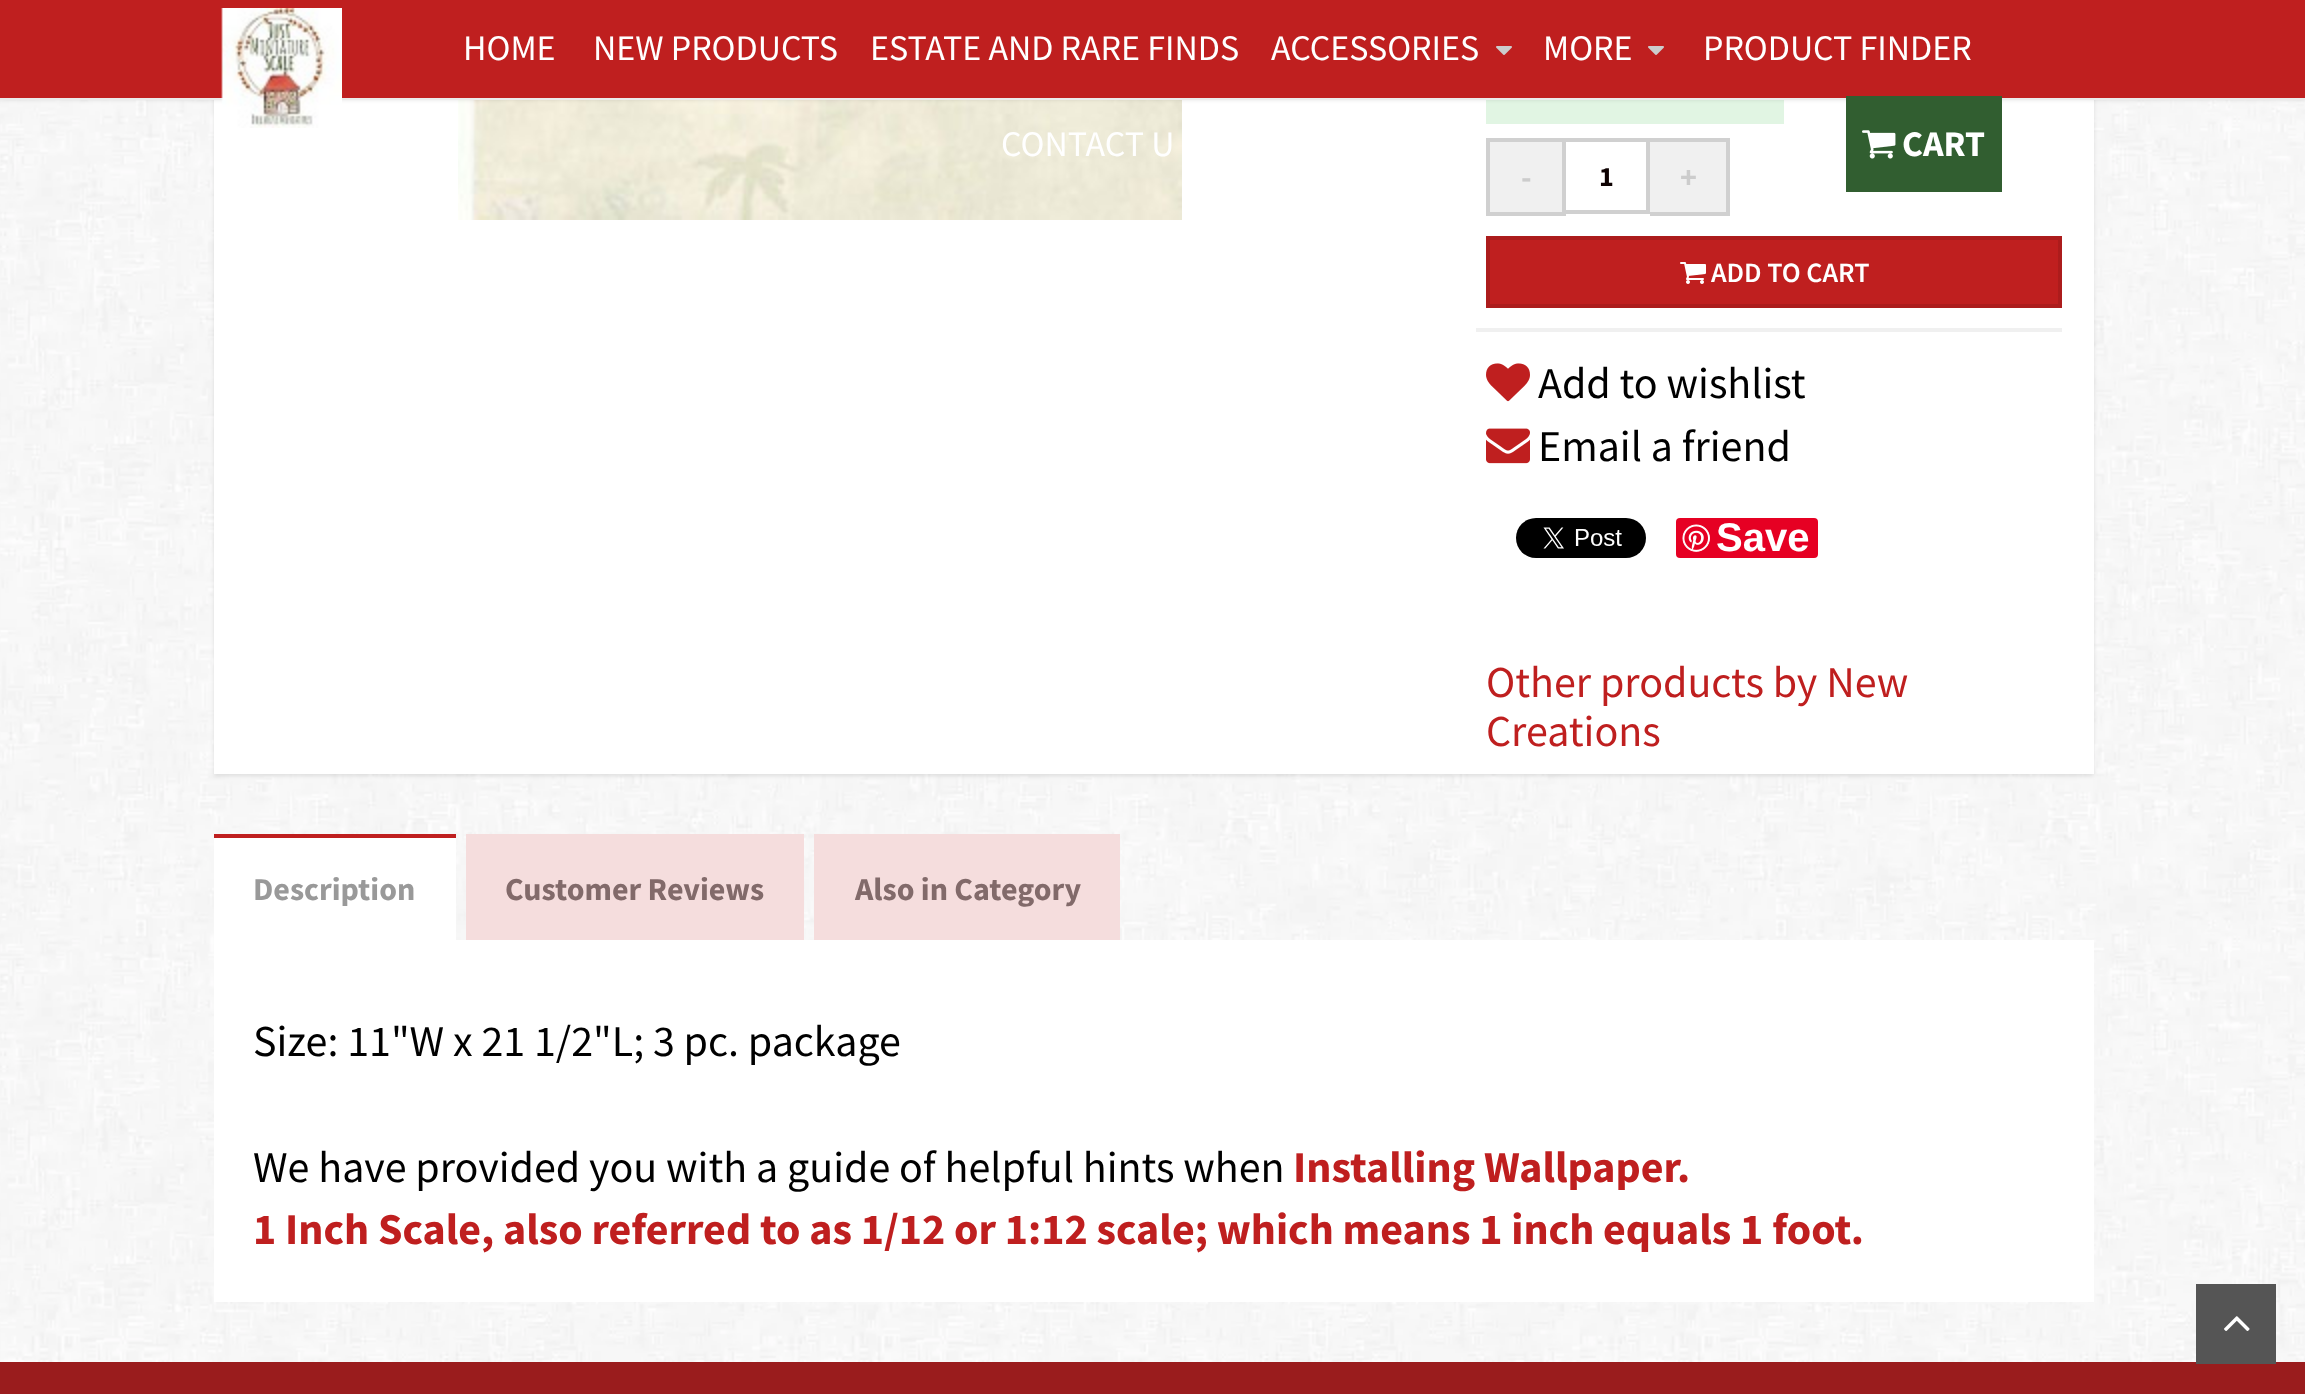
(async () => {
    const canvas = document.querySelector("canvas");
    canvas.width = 2305;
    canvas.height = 1394;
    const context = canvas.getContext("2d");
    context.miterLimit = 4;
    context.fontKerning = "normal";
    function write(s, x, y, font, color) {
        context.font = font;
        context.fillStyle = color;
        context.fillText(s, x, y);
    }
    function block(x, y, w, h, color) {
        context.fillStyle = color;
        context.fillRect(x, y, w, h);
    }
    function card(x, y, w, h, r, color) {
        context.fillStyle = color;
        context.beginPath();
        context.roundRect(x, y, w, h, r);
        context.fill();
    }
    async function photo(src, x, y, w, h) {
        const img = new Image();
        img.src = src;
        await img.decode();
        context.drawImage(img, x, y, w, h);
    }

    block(0, 0, 2305, 1394, "rgb(255, 255, 255)");
    await photo("media/1.png", 0, 100, 2305, 1262);
    context.fillStyle = "rgba(0, 0, 0, 0.1)";
    context.filter = "blur(2px)";
    context.beginPath();
    context.rect(214, -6, 1880, 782);
    context.fill();
    context.filter = "none";
    block(214, 100, 1880, 674, "rgb(255, 255, 255)");
    await photo("media/5.png", 458, 100, 724, 120);
    block(1486, 100, 298, 24, "rgb(225, 245, 227)");
    context.fillStyle = "rgba(0, 0, 0, 0.1)";
    context.filter = "blur(2px)";
    context.beginPath();
    context.rect(0, 0, 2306, 100);
    context.fill();
    context.filter = "none";
    block(0, 0, 2305, 98, "rgb(191, 31, 31)");
    block(0, 98, 2305, 2, "rgb(235, 235, 235)");
    await photo("media/2.png", 221, 8, 121, 120);
    write("HOME", 463, 60, "36px Source Sans Pro", "rgb(255, 255, 255)");
    write("NEW PRODUCTS", 593, 60, "36px Source Sans Pro", "rgb(255, 255, 255)");
    write("ESTATE AND RARE FINDS", 870, 60, "36px Source Sans Pro", "rgb(255, 255, 255)");
    write("ACCESSORIES", 1271, 60, "36px Source Sans Pro", "rgb(255, 255, 255)");
    await photo("media/3.png", 1496, 46, 16, 9);
    write("MORE", 1543, 60, "36px Source Sans Pro", "rgb(255, 255, 255)");
    await photo("media/3.png", 1648, 46, 16, 9);
    write("PRODUCT FINDER", 1703, 60, "36px Source Sans Pro", "rgb(255, 255, 255)");
    write("CONTACT U", 1001, 156, "36px Source Sans Pro", "rgb(255, 255, 255)");
    block(1846, 96, 156, 96, "rgb(49, 94, 48)");
    await photo("media/4.png", 1862, 130, 34, 29);
    write("CART", 1902, 156, "bold 36px Source Sans Pro", "rgb(255, 255, 255)");
    context.fillStyle = "rgb(240, 240, 240)";
    context.beginPath();
    context.rect(1488, 140, 76, 74);
    context.fill();
    context.strokeStyle = "rgb(208, 208, 208)";
    context.lineWidth = 4;
    context.stroke();
    write("-", 1521, 188, "bold 32px Source Sans Pro", "rgb(204, 204, 204)");
    context.strokeRect(1564, 140, 84, 72);
    write("1", 1599, 186, "bold 28px Source Sans Pro", "rgb(14, 2, 2)");
    block(1650, 142, 76, 70, "rgb(240, 240, 240)");
    block(1650, 138, 80, 4, "rgb(208, 208, 208)");
    block(1726, 138, 4, 78, "rgb(208, 208, 208)");
    block(1650, 212, 80, 4, "rgb(208, 208, 208)");
    write("+", 1680, 188, "bold 32px Source Sans Pro", "rgb(204, 204, 204)");
    context.fillStyle = "rgb(191, 31, 31)";
    context.beginPath();
    context.rect(1488, 238, 572, 68);
    context.fill();
    context.strokeStyle = "rgb(172, 28, 28)";
    context.stroke();
    await photo("media/6.png", 1680, 262, 26, 22);
    write("ADD TO CART", 1711, 282, "600 28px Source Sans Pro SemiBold", "rgb(255, 255, 255)");
    block(1476, 328, 586, 4, "rgb(240, 240, 240)");
    await photo("media/7.png", 1486, 363, 44, 39);
    write("Add to wishlist", 1538, 398, "44px Source Sans Pro", "rgb(0, 0, 0)");
    await photo("media/8.png", 1486, 428, 44, 36);
    write("Email a friend", 1538, 461, "44px Source Sans Pro", "rgb(0, 0, 0)");
    await photo("media/9.png", 1516, 518, 130, 40);
    card(1676, 518, 142, 40, 4, "rgb(230, 0, 35)");
    await photo("media/10.png", 1682, 524, 28, 28);
    write("Save", 1716, 551, "bold 40px Liberation Sans", "rgb(255, 255, 255)");
    write("Other products by New", 1486, 697, "44px Source Sans Pro", "rgb(191, 31, 31)");
    write("Creations", 1486, 746, "44px Source Sans Pro", "rgb(191, 31, 31)");
    block(214, 838, 242, 102, "rgb(255, 255, 255)");
    block(214, 834, 242, 4, "rgb(191, 31, 31)");
    write("Description", 253, 900, "bold 32px Source Sans Pro", "rgb(153, 153, 153)");
    block(466, 834, 338, 106, "rgb(245, 221, 221)");
    write("Customer Reviews", 505, 900, "bold 32px Source Sans Pro", "rgb(130, 106, 106)");
    block(814, 834, 306, 106, "rgb(245, 221, 221)");
    write("Also in Category", 855, 900, "bold 32px Source Sans Pro", "rgb(130, 106, 106)");
    block(214, 940, 1880, 362, "rgb(255, 255, 255)");
    write("Size: 11\"W x 21 1/2\"L; 3 pc. package", 253, 1056, "44px Source Sans Pro", "rgb(0, 0, 0)");
    write("We have provided you with a guide of helpful hints when", 253, 1182, "44px Source Sans Pro", "rgb(0, 0, 0)");
    write("Installing Wallpaper.", 1293, 1182, "bold 44px Source Sans Pro", "rgb(191, 31, 31)");
    write("1 Inch Scale, also referred to as 1/12 or 1:12 scale; which means 1 inch equals 1 foot.", 253, 1244, "bold 44px Source Sans Pro", "rgb(191, 31, 31)");
    block(0, 1362, 2305, 32, "rgb(154, 28, 29)");
    block(2196, 1284, 80, 80, "rgb(85, 85, 85)");
    await photo("media/11.png", 2224, 1316, 26, 15);
})();
